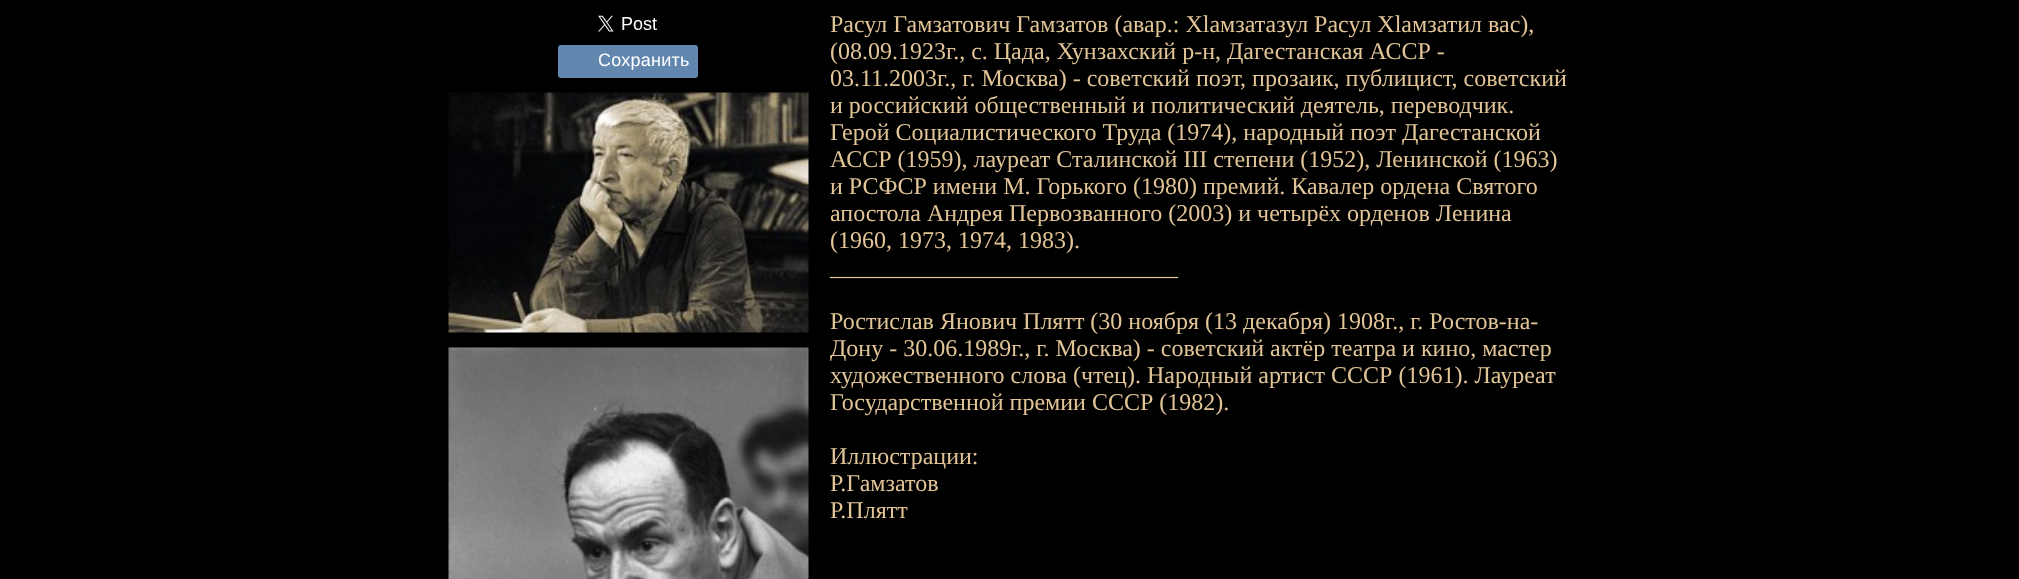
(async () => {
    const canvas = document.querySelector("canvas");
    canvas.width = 2019;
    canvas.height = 579;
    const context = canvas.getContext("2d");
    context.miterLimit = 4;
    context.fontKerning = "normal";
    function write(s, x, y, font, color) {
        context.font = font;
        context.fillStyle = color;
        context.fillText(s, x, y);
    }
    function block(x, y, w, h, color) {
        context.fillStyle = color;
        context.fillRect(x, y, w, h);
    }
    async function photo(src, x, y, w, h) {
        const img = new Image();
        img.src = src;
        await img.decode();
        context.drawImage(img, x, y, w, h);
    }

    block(0, 0, 2019, 579, "rgb(0, 0, 0)");
    await photo("media/1.png", 598, 15, 59, 17);
    context.fillStyle = "rgb(98, 135, 174)";
    context.beginPath();
    context.roundRect(558, 45, 41, 33, [3, 0, 0, 3]);
    context.fill();
    context.beginPath();
    context.roundRect(599, 45, 99, 33, [0, 3, 3, 0]);
    context.fill();
    context.letterSpacing = "0.25px";
    write("Сохранить", 598, 66, "18px Liberation Sans", "rgb(255, 255, 255)");
    await photo("media/2.png", 448, 92, 361, 241);
    await photo("media/3.png", 448, 347, 361, 232);
    context.letterSpacing = "0px";
    write("Расул Гамзатович Гамзатов (авар.: Хӏамзатазул Расул Хӏамзатил вас),", 830, 32, "24px Liberation Serif", "rgb(226, 197, 151)");
    write("(08.09.1923г., с. Цада, Хунзахский р-н, Дагестанская АССР -", 830, 59, "24px Liberation Serif", "rgb(226, 197, 151)");
    write("03.11.2003г., г. Москва) - советский поэт, прозаик, публицист, советский", 830, 86, "24px Liberation Serif", "rgb(226, 197, 151)");
    write("и российский общественный и политический деятель, переводчик.", 830, 113, "24px Liberation Serif", "rgb(226, 197, 151)");
    write("Герой Социалистического Труда (1974), народный поэт Дагестанской", 830, 140, "24px Liberation Serif", "rgb(226, 197, 151)");
    write("АССР (1959), лауреат Сталинской III степени (1952), Ленинской (1963)", 830, 167, "24px Liberation Serif", "rgb(226, 197, 151)");
    write("и РСФСР имени М. Горького (1980) премий. Кавалер ордена Святого", 830, 194, "24px Liberation Serif", "rgb(226, 197, 151)");
    write("апостола Андрея Первозванного (2003) и четырёх орденов Ленина", 830, 221, "24px Liberation Serif", "rgb(226, 197, 151)");
    write("(1960, 1973, 1974, 1983).", 830, 248, "24px Liberation Serif", "rgb(226, 197, 151)");
    write("_____________________________", 830, 275, "24px Liberation Serif", "rgb(226, 197, 151)");
    write("Ростислав Янович Плятт (30 ноября (13 декабря) 1908г., г. Ростов-на-", 830, 329, "24px Liberation Serif", "rgb(226, 197, 151)");
    write("Дону - 30.06.1989г., г. Москва) - советский актёр театра и кино, мастер", 830, 356, "24px Liberation Serif", "rgb(226, 197, 151)");
    write("художественного слова (чтец). Народный артист СССР (1961). Лауреат", 830, 383, "24px Liberation Serif", "rgb(226, 197, 151)");
    write("Государственной премии СССР (1982).", 830, 410, "24px Liberation Serif", "rgb(226, 197, 151)");
    write("Иллюстрации:", 830, 464, "24px Liberation Serif", "rgb(226, 197, 151)");
    write("Р.Гамзатов", 830, 491, "24px Liberation Serif", "rgb(226, 197, 151)");
    write("Р.Плятт", 830, 518, "24px Liberation Serif", "rgb(226, 197, 151)");
})();
